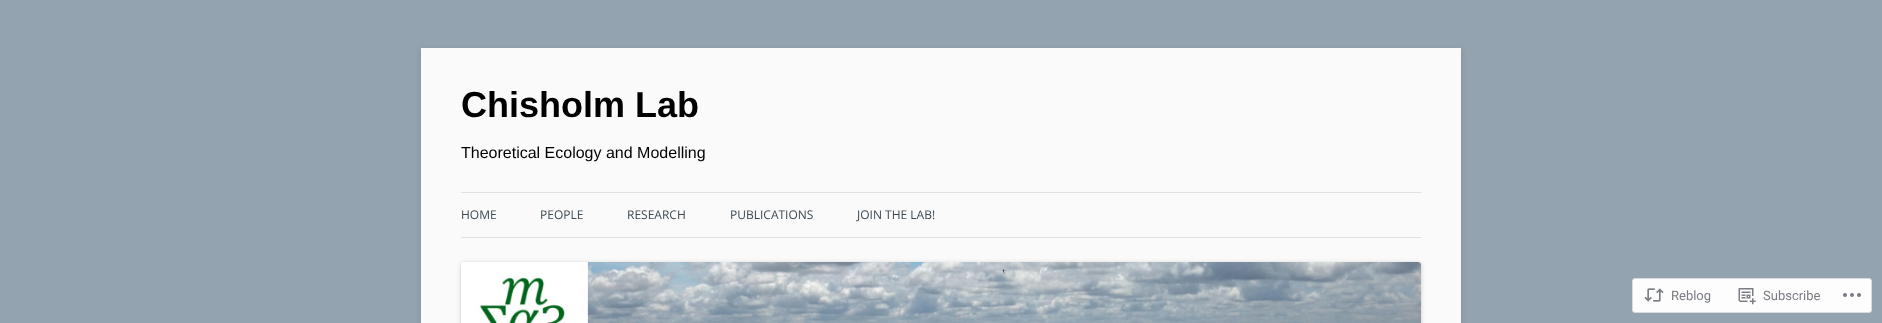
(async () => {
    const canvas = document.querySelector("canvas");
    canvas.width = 1882;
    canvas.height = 323;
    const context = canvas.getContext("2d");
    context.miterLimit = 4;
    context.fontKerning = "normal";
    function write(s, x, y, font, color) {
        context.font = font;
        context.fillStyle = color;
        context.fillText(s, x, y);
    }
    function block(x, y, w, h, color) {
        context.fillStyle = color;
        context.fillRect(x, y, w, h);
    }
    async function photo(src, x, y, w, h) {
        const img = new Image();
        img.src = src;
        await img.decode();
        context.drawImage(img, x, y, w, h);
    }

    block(0, 0, 1882, 323, "rgb(148, 163, 176)");
    context.fillStyle = "rgba(100, 100, 100, 0.3)";
    context.filter = "blur(3px)";
    context.beginPath();
    context.rect(421, 50, 1040, 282);
    context.fill();
    context.filter = "none";
    block(421, 48, 1040, 275, "rgb(250, 250, 251)");
    write("Chisholm Lab", 461, 117, "bold 36px Liberation Sans", "rgb(0, 0, 0)");
    write("Theoretical Ecology and Modelling", 461, 158, "16px Liberation Sans", "rgb(0, 0, 0)");
    block(461, 192, 960, 1, "rgb(225, 225, 226)");
    block(461, 237, 960, 1, "rgb(225, 225, 226)");
    write("HOME", 461, 219, "12px Open Sans", "rgb(61, 73, 81)");
    write("PEOPLE", 540, 219, "12px Open Sans", "rgb(61, 73, 81)");
    write("RESEARCH", 627, 219, "12px Open Sans", "rgb(61, 73, 81)");
    write("PUBLICATIONS", 730, 219, "12px Open Sans", "rgb(61, 73, 81)");
    write("JOIN THE LAB!", 857, 219, "12px Open Sans", "rgb(61, 73, 81)");
    context.fillStyle = "rgba(0, 0, 0, 0.2)";
    context.filter = "blur(2px)";
    context.beginPath();
    context.roundRect(461, 263, 960, 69, 3);
    context.fill();
    context.filter = "none";
    await photo("media/1.png", 461, 262, 960, 61);
    context.fillStyle = "rgb(253, 253, 253)";
    context.beginPath();
    context.roundRect(1632.5, 278.5, 239, 34, 2.5);
    context.fill();
    context.strokeStyle = "rgb(219, 219, 221)";
    context.stroke();
    await photo("media/2.png", 1644, 288, 20, 14);
    write("Reblog", 1671, 300, "13px Roboto", "rgb(121, 125, 131)");
    await photo("media/3.png", 1738, 288, 18, 17);
    write("Subscribe", 1763, 300, "13px Roboto", "rgb(121, 125, 131)");
    await photo("media/4.png", 1843, 293, 18, 4);
})();
